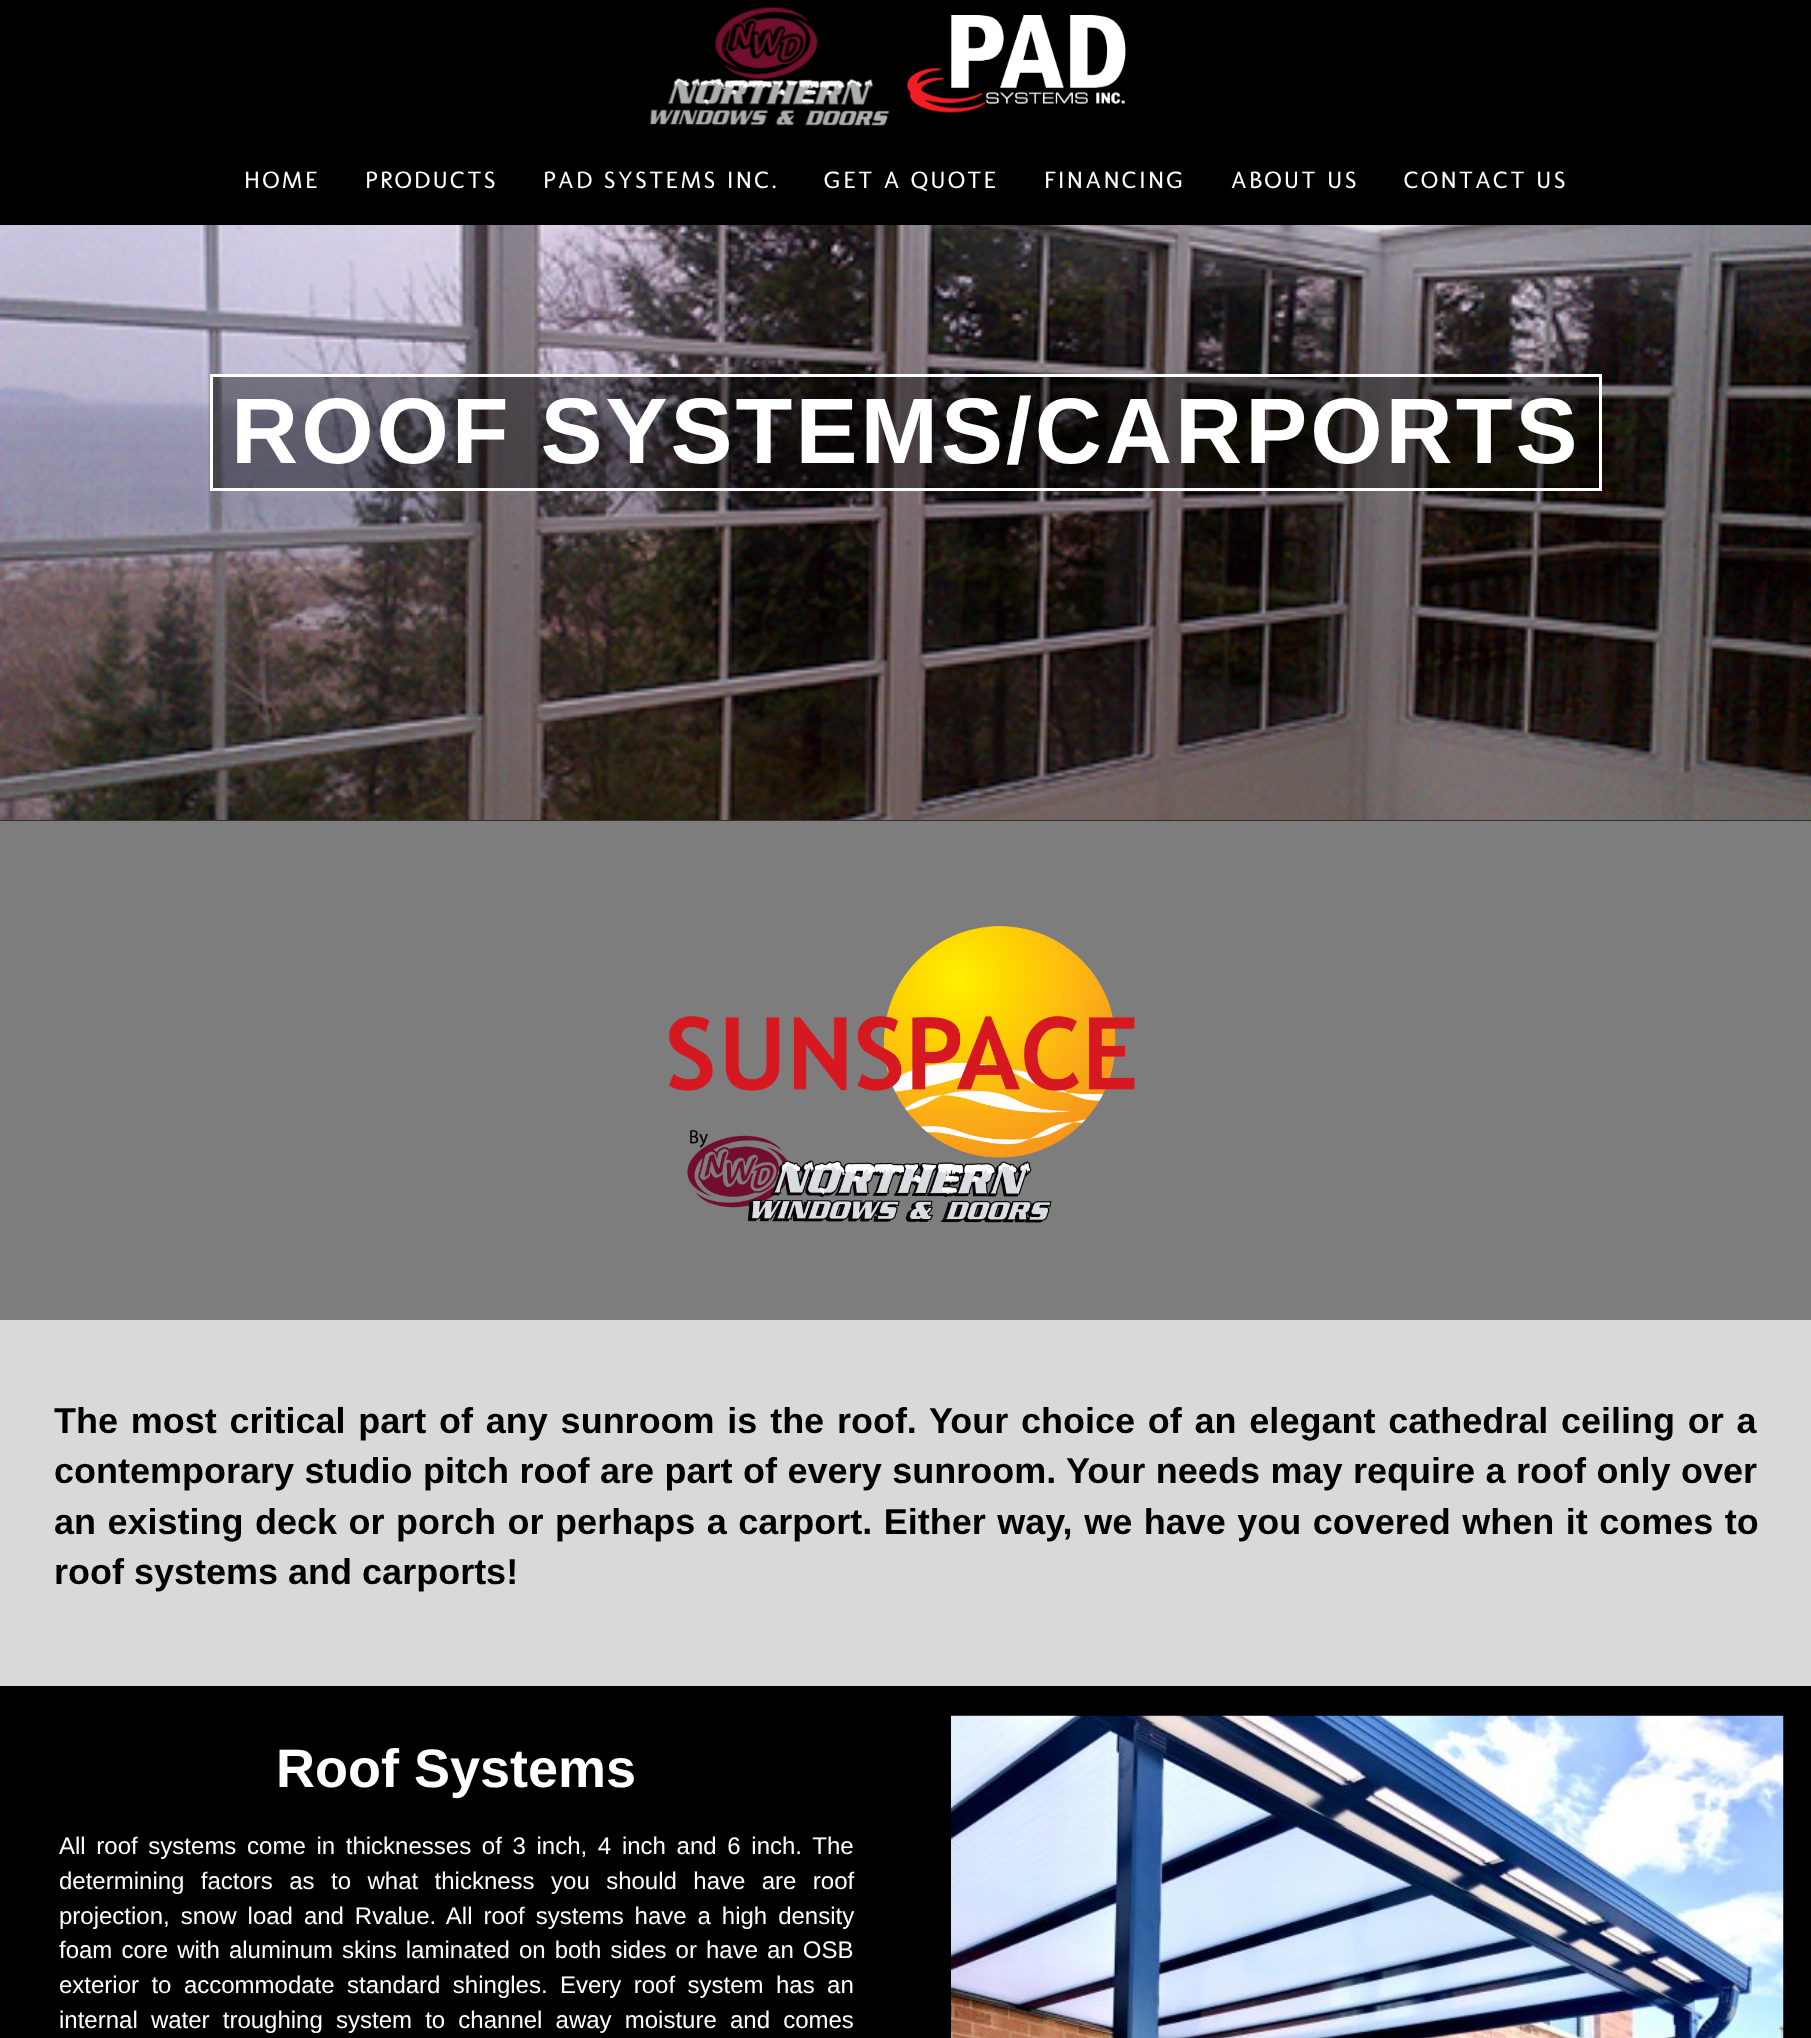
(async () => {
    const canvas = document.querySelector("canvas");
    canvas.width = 1811;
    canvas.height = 2038;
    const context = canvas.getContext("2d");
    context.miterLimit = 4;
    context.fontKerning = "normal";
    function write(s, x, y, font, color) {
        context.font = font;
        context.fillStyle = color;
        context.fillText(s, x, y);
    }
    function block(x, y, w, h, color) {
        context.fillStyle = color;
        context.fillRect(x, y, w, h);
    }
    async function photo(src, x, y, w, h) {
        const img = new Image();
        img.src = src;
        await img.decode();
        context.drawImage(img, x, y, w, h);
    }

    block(0, 0, 1811, 2038, "rgb(218, 217, 215)");
    block(0, 820, 1811, 1, "rgb(48, 48, 48)");
    block(0, 0, 1811, 225, "rgb(0, 0, 0)");
    await photo("media/1.png", 648, 7, 242, 120);
    await photo("media/2.png", 906, 15, 220, 98);
    context.letterSpacing = "2.4px";
    write("HOME", 244, 188, "24px Molengo", "rgb(255, 255, 255)");
    write("PRODUCTS", 365, 188, "24px Molengo", "rgb(255, 255, 255)");
    write("PAD SYSTEMS INC.", 543, 188, "24px Molengo", "rgb(255, 255, 255)");
    write("GET A QUOTE", 824, 188, "24px Molengo", "rgb(255, 255, 255)");
    write("FINANCING", 1044, 188, "24px Molengo", "rgb(255, 255, 255)");
    write("ABOUT US", 1231, 188, "24px Molengo", "rgb(255, 255, 255)");
    write("CONTACT US", 1404, 188, "24px Molengo", "rgb(255, 255, 255)");
    await photo("media/3.png", 0, 225, 1811, 595);
    context.fillStyle = "rgba(0, 0, 0, 0.4)";
    context.beginPath();
    context.rect(211.5, 375.5, 1389, 114);
    context.fill();
    context.strokeStyle = "rgb(255, 255, 255)";
    context.lineWidth = 3;
    context.stroke();
    context.letterSpacing = "3px";
    write("ROOF SYSTEMS/CARPORTS", 231, 463, "bold 93px Liberation Sans", "rgb(255, 255, 255)");
    block(0, 821, 1811, 499, "rgb(125, 125, 125)");
    await photo("media/4.png", 669, 926, 466, 297);
    context.letterSpacing = "0px";
    context.wordSpacing = "2.75px";
    write("The most critical part of any sunroom is the roof. Your choice of an elegant cathedral ceiling or a", 54, 1433, "bold 36px Liberation Sans", "rgb(0, 0, 0)");
    context.wordSpacing = "0.5px";
    write("contemporary studio pitch roof are part of every sunroom. Your needs may require a roof only over", 54, 1483, "bold 36px Liberation Sans", "rgb(0, 0, 0)");
    context.wordSpacing = "1.5px";
    write("an existing deck or porch or perhaps a carport. Either way, we have you covered when it comes to", 54, 1534, "bold 36px Liberation Sans", "rgb(0, 0, 0)");
    context.wordSpacing = "0px";
    write("roof systems and carports!", 54, 1584, "bold 36px Liberation Sans", "rgb(0, 0, 0)");
    block(0, 1686, 1811, 352, "rgb(0, 0, 0)");
    write("Roof Systems", 276, 1787, "bold 54px Liberation Sans", "rgb(255, 255, 255)");
    context.wordSpacing = "4px";
    write("All roof systems come in thicknesses of 3 inch, 4 inch and 6 inch. The", 59, 1854, "24px Liberation Sans", "rgb(255, 255, 255)");
    context.wordSpacing = "9.75px";
    write("determining factors as to what thickness you should have are roof", 59, 1889, "24px Liberation Sans", "rgb(255, 255, 255)");
    context.wordSpacing = "4.25px";
    write("projection, snow load and Rvalue. All roof systems have a high density", 59, 1924, "24px Liberation Sans", "rgb(255, 255, 255)");
    context.wordSpacing = "2.4px";
    write("foam core with aluminum skins laminated on both sides or have an OSB", 59, 1958, "24px Liberation Sans", "rgb(255, 255, 255)");
    context.wordSpacing = "5.75px";
    write("exterior to accommodate standard shingles. Every roof system has an", 59, 1993, "24px Liberation Sans", "rgb(255, 255, 255)");
    context.wordSpacing = "6.5px";
    write("internal water troughing system to channel away moisture and comes", 59, 2028, "24px Liberation Sans", "rgb(255, 255, 255)");
    await photo("media/5.png", 951, 1715, 833, 323);
})();
